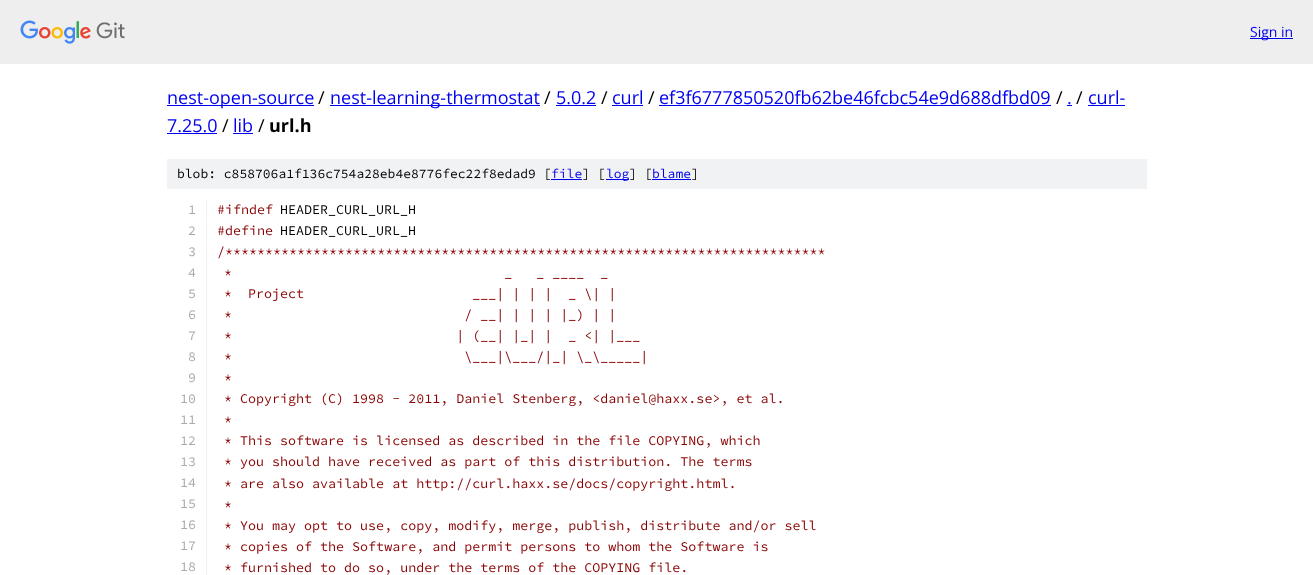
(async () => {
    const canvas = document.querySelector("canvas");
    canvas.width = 1313;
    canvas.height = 575;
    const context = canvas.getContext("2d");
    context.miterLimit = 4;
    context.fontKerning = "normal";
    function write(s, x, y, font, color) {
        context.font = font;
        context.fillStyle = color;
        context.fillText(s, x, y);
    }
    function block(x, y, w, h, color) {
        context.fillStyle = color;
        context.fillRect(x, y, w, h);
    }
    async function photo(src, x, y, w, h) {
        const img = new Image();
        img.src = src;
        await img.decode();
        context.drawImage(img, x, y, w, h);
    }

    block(0, 0, 1313, 575, "rgb(255, 255, 255)");
    block(0, 0, 1313, 64, "rgb(238, 238, 238)");
    await photo("media/1.png", 20, 20, 105, 24);
    block(1250, 38, 43, 1, "rgb(0, 0, 238)");
    write("Sign in", 1250, 37, "14px Open Sans", "rgb(0, 0, 238)");
    block(167, 105, 147, 1, "rgb(0, 0, 238)");
    write("nest-open-source", 167, 104, "18px Open Sans", "rgb(0, 0, 238)");
    write("/", 318, 104, "18px Open Sans", "rgb(0, 0, 0)");
    block(330, 105, 210, 1, "rgb(0, 0, 238)");
    write("nest-learning-thermostat", 330, 104, "18px Open Sans", "rgb(0, 0, 238)");
    write("/", 544, 104, "18px Open Sans", "rgb(0, 0, 0)");
    write("5.0.2", 556, 104, "18px Open Sans", "rgb(0, 0, 238)");
    block(556, 105, 40, 1, "rgb(0, 0, 238)");
    write("/", 601, 104, "18px Open Sans", "rgb(0, 0, 0)");
    write("curl", 612, 104, "18px Open Sans", "rgb(0, 0, 238)");
    block(612, 105, 31, 1, "rgb(0, 0, 238)");
    write("/", 648, 104, "18px Open Sans", "rgb(0, 0, 0)");
    write("ef3f6777850520fb62be46fcbc54e9d688dfbd09", 659, 104, "18px Open Sans", "rgb(0, 0, 238)");
    block(659, 105, 392, 1, "rgb(0, 0, 238)");
    write("/", 1056, 104, "18px Open Sans", "rgb(0, 0, 0)");
    write(".", 1067, 104, "18px Open Sans", "rgb(0, 0, 238)");
    block(1067, 105, 5, 1, "rgb(0, 0, 238)");
    write("/", 1076, 104, "18px Open Sans", "rgb(0, 0, 0)");
    write("curl-", 1088, 104, "18px Open Sans", "rgb(0, 0, 238)");
    block(1088, 105, 37, 1, "rgb(0, 0, 238)");
    write("7.25.0", 167, 132, "18px Open Sans", "rgb(0, 0, 238)");
    block(167, 133, 50, 1, "rgb(0, 0, 238)");
    write("/", 222, 132, "18px Open Sans", "rgb(0, 0, 0)");
    write("lib", 233, 132, "18px Open Sans", "rgb(0, 0, 238)");
    block(233, 133, 20, 1, "rgb(0, 0, 238)");
    write("/", 258, 132, "18px Open Sans", "rgb(0, 0, 0)");
    write("url.h", 269, 132, "bold 18px Open Sans", "rgb(0, 0, 0)");
    block(167, 159, 980, 30, "rgb(241, 242, 243)");
    write("blob: c858706a1f136c754a28eb4e8776fec22f8edad9 [", 177, 178, "200 13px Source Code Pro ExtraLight", "rgb(0, 0, 0)");
    write("file", 551, 178, "200 13px Source Code Pro ExtraLight", "rgb(0, 0, 238)");
    block(551, 179, 31, 1, "rgb(0, 0, 238)");
    write("] [", 582, 178, "200 13px Source Code Pro ExtraLight", "rgb(0, 0, 0)");
    block(606, 179, 23, 1, "rgb(0, 0, 238)");
    write("log", 606, 178, "200 13px Source Code Pro ExtraLight", "rgb(0, 0, 238)");
    write("] [", 629, 178, "200 13px Source Code Pro ExtraLight", "rgb(0, 0, 0)");
    write("blame", 652, 178, "200 13px Source Code Pro ExtraLight", "rgb(0, 0, 238)");
    block(652, 179, 39, 1, "rgb(0, 0, 238)");
    write("]", 691, 178, "200 13px Source Code Pro ExtraLight", "rgb(0, 0, 0)");
    block(206, 200, 1, 20, "rgb(241, 242, 243)");
    write("1", 188, 214, "200 13.35px Source Code Pro ExtraLight", "rgb(170, 170, 170)");
    write("#ifndef", 217, 214, "200 13.35px Source Code Pro ExtraLight", "rgb(136, 0, 0)");
    write("HEADER_CURL_URL_H", 280, 214, "200 13.35px Source Code Pro ExtraLight", "rgb(0, 0, 0)");
    block(206, 221, 1, 20, "rgb(241, 242, 243)");
    write("2", 188, 235, "200 13.35px Source Code Pro ExtraLight", "rgb(170, 170, 170)");
    write("#define", 217, 235, "200 13.35px Source Code Pro ExtraLight", "rgb(136, 0, 0)");
    write("HEADER_CURL_URL_H", 280, 235, "200 13.35px Source Code Pro ExtraLight", "rgb(0, 0, 0)");
    block(206, 242, 1, 333, "rgb(241, 242, 243)");
    write("3", 188, 256, "200 13.35px Source Code Pro ExtraLight", "rgb(170, 170, 170)");
    write("/***************************************************************************", 217, 256, "200 13.35px Source Code Pro ExtraLight", "rgb(136, 0, 0)");
    write("4", 188, 277, "200 13.35px Source Code Pro ExtraLight", "rgb(170, 170, 170)");
    write("*                                  _   _ ____  _", 224, 277, "200 13.35px Source Code Pro ExtraLight", "rgb(136, 0, 0)");
    write("5", 188, 298, "200 13.35px Source Code Pro ExtraLight", "rgb(170, 170, 170)");
    write("*  Project                     ___| | | |  _ \\| |", 224, 298, "200 13.35px Source Code Pro ExtraLight", "rgb(136, 0, 0)");
    write("6", 188, 319, "200 13.35px Source Code Pro ExtraLight", "rgb(170, 170, 170)");
    write("*                             / __| | | | |_) | |", 224, 319, "200 13.35px Source Code Pro ExtraLight", "rgb(136, 0, 0)");
    write("7", 188, 340, "200 13.35px Source Code Pro ExtraLight", "rgb(170, 170, 170)");
    write("*                            | (__| |_| |  _ <| |___", 224, 340, "200 13.35px Source Code Pro ExtraLight", "rgb(136, 0, 0)");
    write("8", 188, 361, "200 13.35px Source Code Pro ExtraLight", "rgb(170, 170, 170)");
    write("*                             \\___|\\___/|_| \\_\\_____|", 224, 361, "200 13.35px Source Code Pro ExtraLight", "rgb(136, 0, 0)");
    write("9", 188, 382, "200 13.35px Source Code Pro ExtraLight", "rgb(170, 170, 170)");
    write("*", 224, 382, "200 13.35px Source Code Pro ExtraLight", "rgb(136, 0, 0)");
    write("10", 180, 403, "200 13.35px Source Code Pro ExtraLight", "rgb(170, 170, 170)");
    write("* Copyright (C) 1998 - 2011, Daniel Stenberg, <daniel@haxx.se>, et al.", 224, 403, "200 13.35px Source Code Pro ExtraLight", "rgb(136, 0, 0)");
    write("11", 180, 424, "200 13.35px Source Code Pro ExtraLight", "rgb(170, 170, 170)");
    write("*", 224, 424, "200 13.35px Source Code Pro ExtraLight", "rgb(136, 0, 0)");
    write("12", 180, 445, "200 13.35px Source Code Pro ExtraLight", "rgb(170, 170, 170)");
    write("* This software is licensed as described in the file COPYING, which", 224, 445, "200 13.35px Source Code Pro ExtraLight", "rgb(136, 0, 0)");
    write("13", 180, 466, "200 13.35px Source Code Pro ExtraLight", "rgb(170, 170, 170)");
    write("* you should have received as part of this distribution. The terms", 224, 466, "200 13.35px Source Code Pro ExtraLight", "rgb(136, 0, 0)");
    write("14", 180, 487, "200 13.35px Source Code Pro ExtraLight", "rgb(170, 170, 170)");
    write("* are also available at http://curl.haxx.se/docs/copyright.html.", 224, 488, "200 13.35px Source Code Pro ExtraLight", "rgb(136, 0, 0)");
    write("15", 180, 508, "200 13.35px Source Code Pro ExtraLight", "rgb(170, 170, 170)");
    write("*", 224, 509, "200 13.35px Source Code Pro ExtraLight", "rgb(136, 0, 0)");
    write("16", 180, 529, "200 13.35px Source Code Pro ExtraLight", "rgb(170, 170, 170)");
    write("* You may opt to use, copy, modify, merge, publish, distribute and/or sell", 224, 530, "200 13.35px Source Code Pro ExtraLight", "rgb(136, 0, 0)");
    write("17", 180, 550, "200 13.35px Source Code Pro ExtraLight", "rgb(170, 170, 170)");
    write("* copies of the Software, and permit persons to whom the Software is", 224, 551, "200 13.35px Source Code Pro ExtraLight", "rgb(136, 0, 0)");
    write("18", 180, 571, "200 13.35px Source Code Pro ExtraLight", "rgb(170, 170, 170)");
    write("* furnished to do so, under the terms of the COPYING file.", 224, 572, "200 13.35px Source Code Pro ExtraLight", "rgb(136, 0, 0)");
})();
